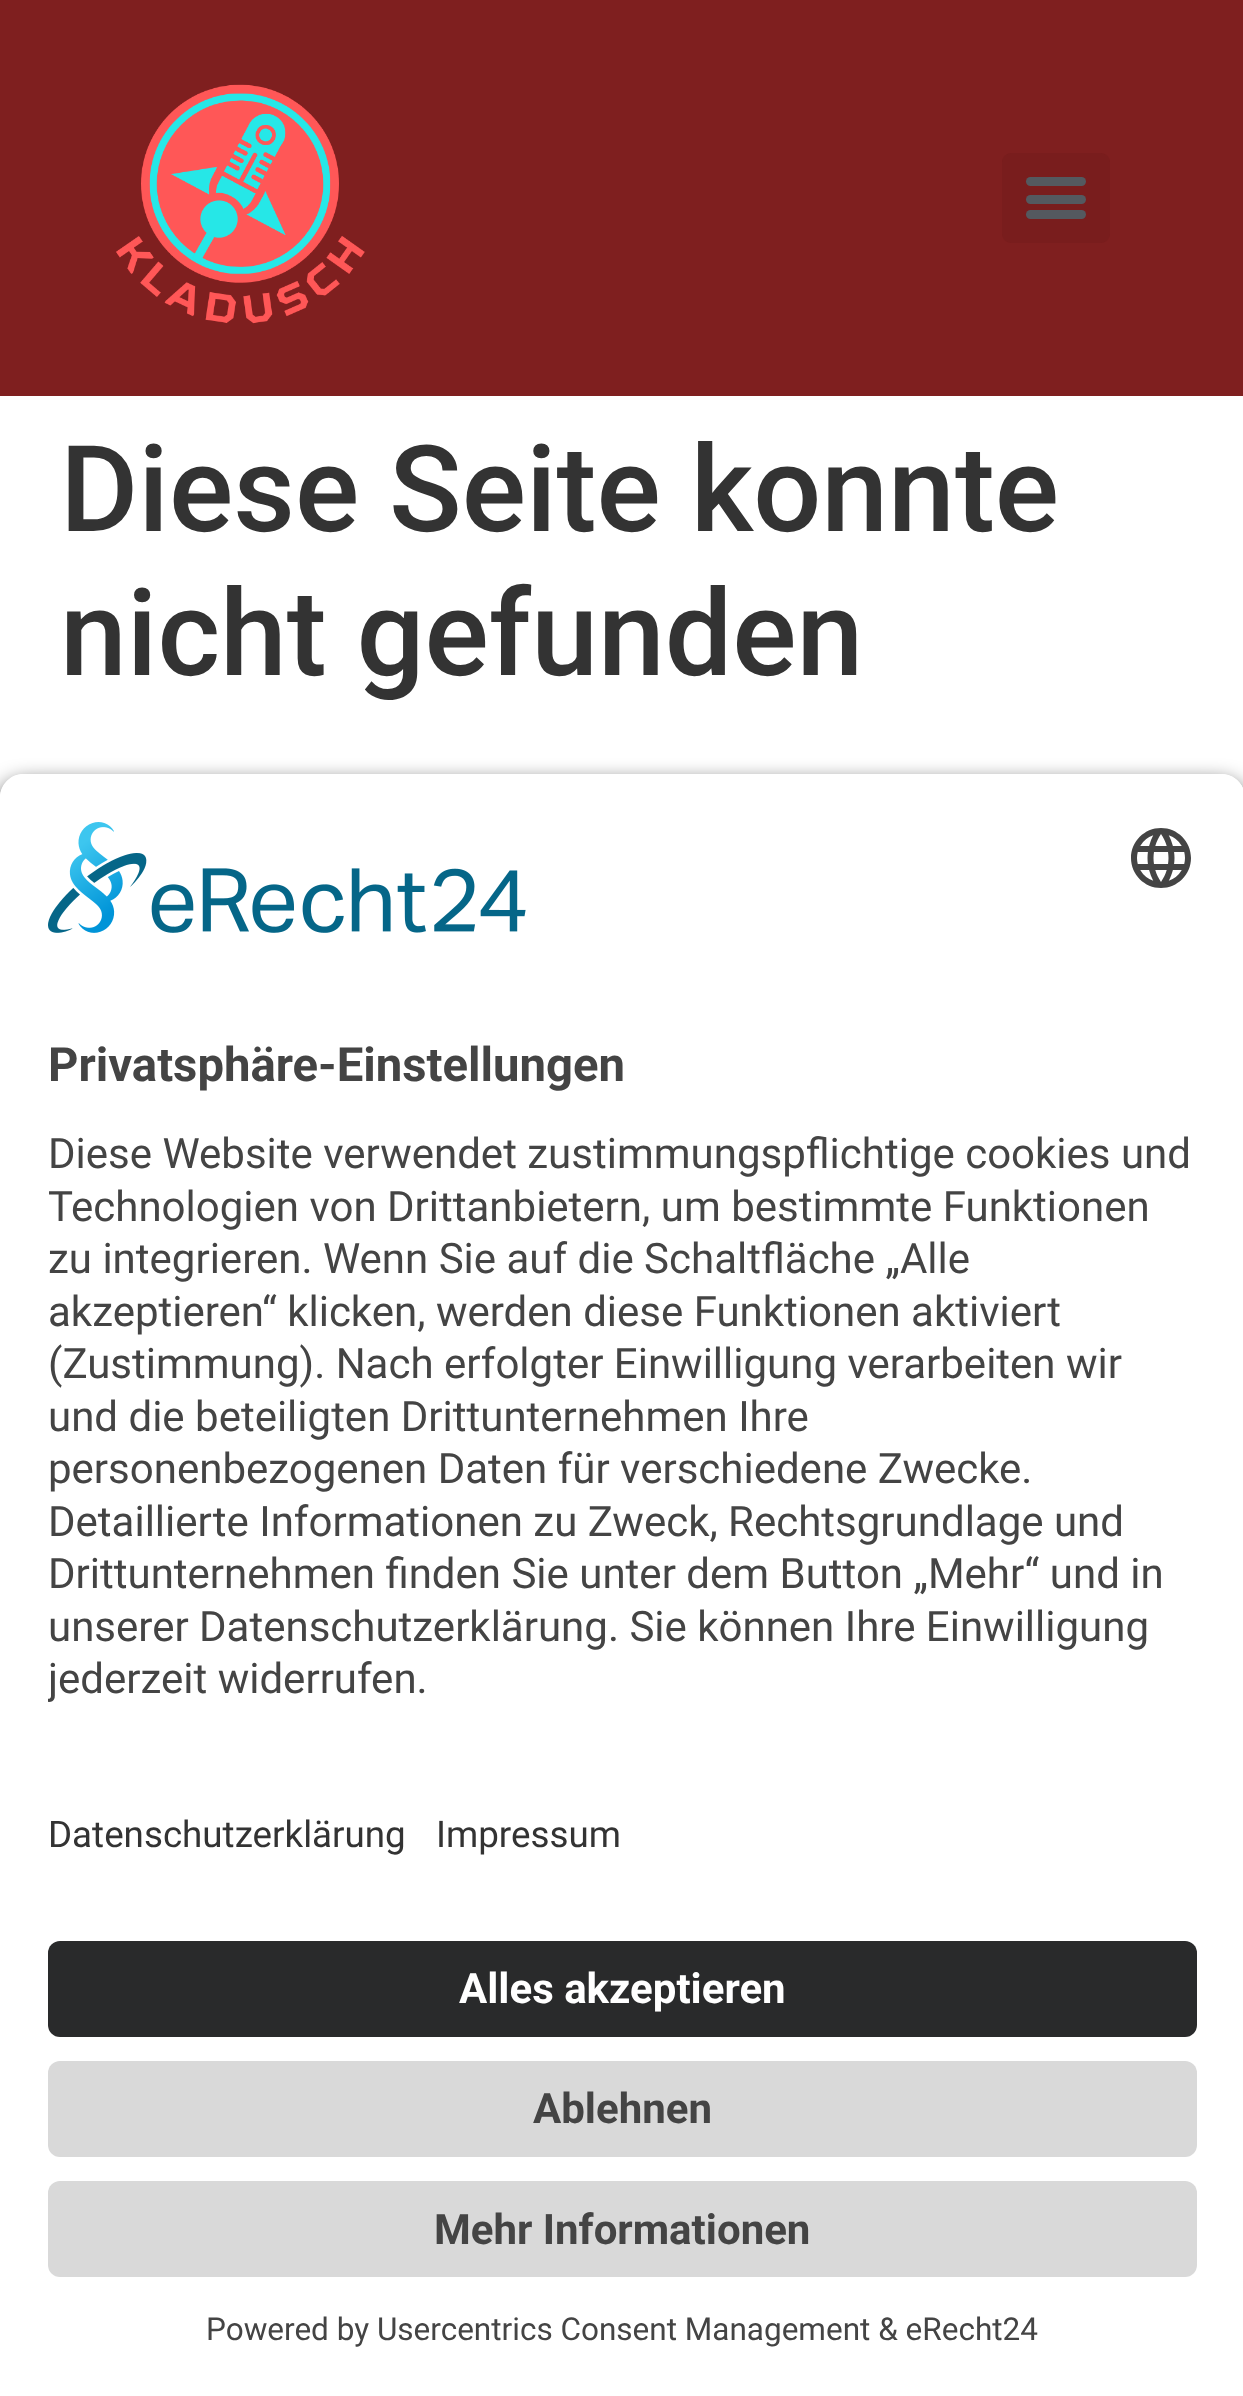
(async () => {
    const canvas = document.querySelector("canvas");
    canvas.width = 1243;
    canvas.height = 2396;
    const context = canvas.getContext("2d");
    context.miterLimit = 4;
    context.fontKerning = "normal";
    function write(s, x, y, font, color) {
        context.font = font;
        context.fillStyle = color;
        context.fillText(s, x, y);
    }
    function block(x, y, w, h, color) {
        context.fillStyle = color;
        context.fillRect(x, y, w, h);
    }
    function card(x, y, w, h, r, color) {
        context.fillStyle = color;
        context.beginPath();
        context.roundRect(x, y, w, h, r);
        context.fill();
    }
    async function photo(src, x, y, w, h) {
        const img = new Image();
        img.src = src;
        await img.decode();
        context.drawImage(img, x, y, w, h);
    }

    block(0, 0, 1243, 2396, "rgb(255, 255, 255)");
    block(0, 0, 1243, 396, "rgb(127, 31, 31)");
    await photo("media/1.png", 116, 84, 249, 240);
    card(1002, 153, 108, 90, 9, "rgb(121, 29, 29)");
    card(1026, 195, 60, 9, 4.5, "rgb(84, 89, 95)");
    card(1026, 177, 60, 9, 4.5, "rgb(84, 89, 95)");
    card(1026, 210, 60, 9, 4.5, "rgb(84, 89, 95)");
    write("Diese Seite konnte", 60, 531, "500 120px Roboto", "rgb(51, 51, 51)");
    write("nicht gefunden", 60, 675, "500 120px Roboto", "rgb(51, 51, 51)");
    context.save();
    context.beginPath();
    context.moveTo(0, 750);
    context.lineTo(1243, 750);
    context.lineTo(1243, 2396);
    context.lineTo(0, 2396);
    context.closePath();
    context.moveTo(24, 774);
    context.lineTo(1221, 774);
    context.bezierCurveTo(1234.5, 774, 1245, 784.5, 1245, 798);
    context.lineTo(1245, 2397);
    context.lineTo(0, 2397);
    context.lineTo(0, 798);
    context.bezierCurveTo(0, 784.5, 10.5, 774, 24, 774);
    context.closePath();
    context.clip("evenodd");
    context.fillStyle = "rgba(0, 0, 0, 0.8)";
    context.filter = "blur(10.5px)";
    context.beginPath();
    context.roundRect(0, 783, 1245, 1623, 24);
    context.fill();
    context.filter = "none";
    context.restore();
    context.fillStyle = "rgb(255, 255, 255)";
    context.beginPath();
    context.moveTo(24, 774);
    context.lineTo(1221, 774);
    context.bezierCurveTo(1234.5, 774, 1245, 784.5, 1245, 798);
    context.lineTo(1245, 1767);
    context.lineTo(0, 1767);
    context.lineTo(0, 798);
    context.bezierCurveTo(0, 784.5, 10.5, 774, 24, 774);
    context.closePath();
    context.fill();
    await photo("media/2.png", 48, 822, 478, 111);
    await photo("media/3.png", 1131, 828, 60, 60);
    write("Privatsphäre-Einstellungen", 48, 1081, "bold 47.25px Roboto", "rgb(68, 68, 68)");
    write("Diese Website verwendet zustimmungspflichtige cookies und", 48, 1168, "42px Roboto", "rgb(68, 68, 68)");
    write("Technologien von Drittanbietern, um bestimmte Funktionen", 48, 1221, "42px Roboto", "rgb(68, 68, 68)");
    write("zu integrieren. Wenn Sie auf die Schaltfläche „Alle", 48, 1273, "42px Roboto", "rgb(68, 68, 68)");
    write("akzeptieren“ klicken, werden diese Funktionen aktiviert", 48, 1326, "42px Roboto", "rgb(68, 68, 68)");
    write("(Zustimmung). Nach erfolgter Einwilligung verarbeiten wir", 48, 1378, "42px Roboto", "rgb(68, 68, 68)");
    write("und die beteiligten Drittunternehmen Ihre", 48, 1431, "42px Roboto", "rgb(68, 68, 68)");
    write("personenbezogenen Daten für verschiedene Zwecke.", 48, 1483, "42px Roboto", "rgb(68, 68, 68)");
    write("Detaillierte Informationen zu Zweck, Rechtsgrundlage und", 48, 1536, "42px Roboto", "rgb(68, 68, 68)");
    write("Drittunternehmen finden Sie unter dem Button „Mehr“ und in", 48, 1588, "42px Roboto", "rgb(68, 68, 68)");
    write("unserer Datenschutzerklärung. Sie können Ihre Einwilligung", 48, 1641, "42px Roboto", "rgb(68, 68, 68)");
    context.save();
    context.beginPath();
    context.rect(48, 1116, 1149, 603);
    context.clip();
    write("jederzeit widerrufen.", 48, 1693, "42px Roboto", "rgb(68, 68, 68)");
    context.restore();
    write("Datenschutzerklärung", 48, 1847, "36.75px Roboto", "rgb(51, 51, 51)");
    write("Impressum", 436, 1847, "36.75px Roboto", "rgb(51, 51, 51)");
    card(48, 1941, 1149, 96, 12, "rgb(41, 42, 43)");
    write("Alles akzeptieren", 459, 2003, "bold 42px Roboto", "rgb(255, 255, 255)");
    card(48, 2061, 1149, 96, 12, "rgb(217, 217, 217)");
    write("Ablehnen", 533, 2123, "bold 42px Roboto", "rgb(68, 68, 68)");
    card(48, 2181, 1149, 96, 12, "rgb(217, 217, 217)");
    write("Mehr Informationen", 434, 2244, "bold 42px Roboto", "rgb(68, 68, 68)");
    write("Powered by Usercentrics Consent Management & eRecht24", 206, 2340, "31.5px Roboto", "rgb(68, 68, 68)");
})();
